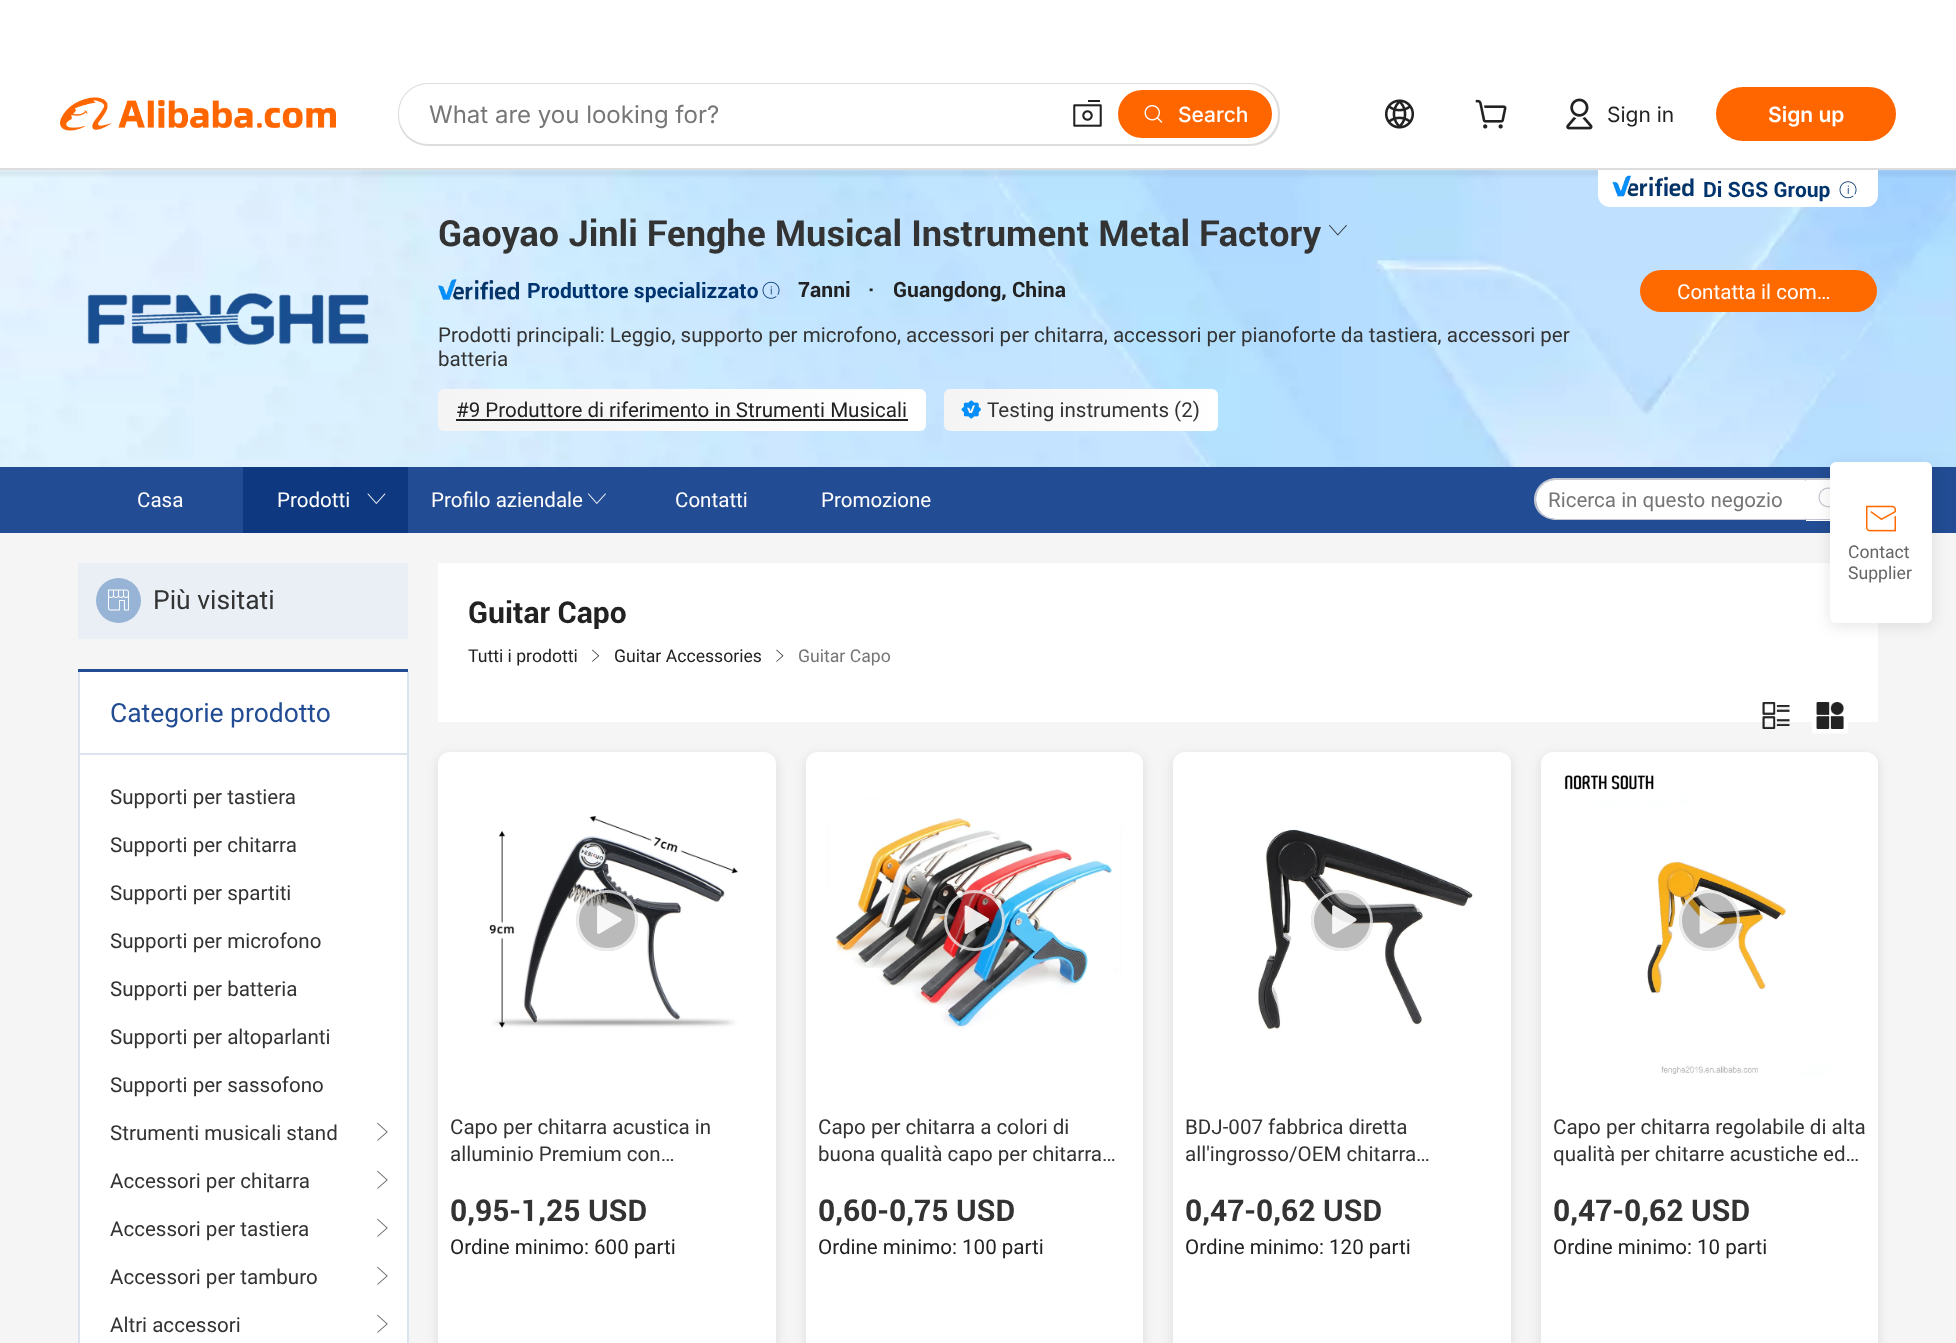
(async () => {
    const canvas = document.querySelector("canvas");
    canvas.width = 1956;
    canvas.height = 1343;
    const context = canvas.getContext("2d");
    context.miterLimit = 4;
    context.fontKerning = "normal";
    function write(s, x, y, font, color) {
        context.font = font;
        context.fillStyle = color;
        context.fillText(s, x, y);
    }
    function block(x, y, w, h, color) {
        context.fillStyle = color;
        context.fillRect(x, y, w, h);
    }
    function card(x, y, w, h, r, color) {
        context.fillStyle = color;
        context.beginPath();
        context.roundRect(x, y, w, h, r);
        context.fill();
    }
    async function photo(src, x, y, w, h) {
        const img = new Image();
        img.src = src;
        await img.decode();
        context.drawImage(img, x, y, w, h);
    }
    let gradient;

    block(0, 0, 1956, 1343, "rgb(255, 255, 255)");
    await photo("media/7.png", 0, 170, 1956, 297);
    context.fillStyle = "rgba(0, 0, 0, 0.05)";
    context.filter = "blur(1.5px)";
    context.beginPath();
    context.rect(-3, 170, 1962, 6);
    context.fill();
    context.filter = "none";
    block(0, 168, 1956, 2, "rgb(221, 221, 221)");
    await photo("media/1.png", 60, 97, 276, 34);
    card(398, 83, 882, 63, 30, "rgb(221, 221, 221)");
    card(399, 84, 879, 60, 29, "rgb(255, 255, 255)");
    write("What are you looking for?", 429, 123, "24px Inter", "rgb(118, 118, 118)");
    await photo("media/2.png", 1073, 100, 29, 27);
    card(1118, 90, 154, 48, 24, "rgb(255, 102, 0)");
    await photo("media/3.png", 1144, 105, 19, 18);
    write("Search", 1178, 122, "500 21px Inter", "rgb(255, 255, 255)");
    await photo("media/4.png", 1385, 99, 29, 30);
    await photo("media/5.png", 1475, 99, 32, 30);
    await photo("media/6.png", 1566, 98, 27, 32);
    write("Sign in", 1607, 122, "21px Inter", "rgb(34, 34, 34)");
    card(1716, 87, 180, 54, 27, "rgb(255, 102, 0)");
    write("Sign up", 1768, 122, "600 21px Inter", "rgb(255, 255, 255)");
    context.beginPath();
    context.roundRect(1598, 170, 280, 37, [0, 0, 12, 12]);
    context.fill();
    await photo("media/8.png", 1612, 175, 82, 22);
    write("Di SGS Group", 1703, 197, "bold 21px Roboto", "rgb(0, 52, 110)");
    await photo("media/9.png", 1839, 181, 18, 18);
    await photo("media/10.png", 87, 293, 282, 53);
    write("Gaoyao Jinli Fenghe Musical Instrument Metal Factory", 438, 246, "bold 36px Roboto", "rgb(51, 51, 51)");
    await photo("media/11.png", 1329, 225, 18, 11);
    await photo("media/12.png", 438, 279, 81, 21);
    write("Produttore specializzato", 527, 298, "bold 21px Roboto", "rgb(0, 52, 110)");
    await photo("media/13.png", 762, 281, 18, 18);
    write("7anni", 798, 297, "bold 21px Roboto", "rgb(34, 34, 34)");
    write("·", 868, 297, "bold 21px Roboto", "rgb(34, 34, 34)");
    write("Guangdong, China", 893, 297, "bold 21px Roboto", "rgb(34, 34, 34)");
    write("Prodotti principali: Leggio, supporto per microfono, accessori per chitarra, accessori per pianoforte da tastiera, accessori per", 438, 342, "21px Roboto", "rgb(51, 51, 51)");
    write("batteria", 438, 366, "21px Roboto", "rgb(51, 51, 51)");
    gradient = context.createLinearGradient(926, 409, 438, 410);
    gradient.addColorStop(0, "rgb(255, 255, 255)");
    gradient.addColorStop(1, "rgb(244, 244, 244)");
    context.fillStyle = gradient;
    context.beginPath();
    context.roundRect(438, 389, 488, 42, 6);
    context.fill();
    write("#9 Produttore di riferimento in Strumenti Musicali", 456, 417, "21px Roboto", "rgb(34, 34, 34)");
    block(456, 419, 452, 2, "rgb(34, 34, 34)");
    gradient = context.createLinearGradient(1218, 410, 944, 410);
    gradient.addColorStop(0, "rgb(255, 255, 255)");
    gradient.addColorStop(1, "rgb(244, 244, 244)");
    context.fillStyle = gradient;
    context.beginPath();
    context.roundRect(944, 389, 274, 42, 6);
    context.fill();
    await photo("media/14.png", 961, 400, 20, 19);
    write("Testing instruments (2)", 987, 417, "21px Roboto", "rgb(51, 51, 51)");
    card(1640, 270, 237, 42, 21, "rgb(255, 106, 0)");
    write("Contatta il com…", 1677, 299, "21px Roboto", "rgb(255, 255, 255)");
    block(0, 467, 1956, 66, "rgb(34, 76, 147)");
    write("Casa", 137, 507, "21px Roboto", "rgb(255, 255, 255)");
    block(243, 467, 165, 66, "rgb(14, 56, 127)");
    write("Prodotti", 277, 507, "21px Roboto", "rgb(255, 255, 255)");
    await photo("media/15.png", 367, 493, 19, 11);
    write("Profilo aziendale", 431, 507, "21px Roboto", "rgb(255, 255, 255)");
    await photo("media/16.png", 588, 493, 18, 11);
    write("Contatti", 675, 507, "21px Roboto", "rgb(255, 255, 255)");
    write("Promozione", 821, 507, "21px Roboto", "rgb(255, 255, 255)");
    context.fillStyle = "rgb(196, 198, 207)";
    context.beginPath();
    context.moveTo(1556, 478);
    context.lineTo(1806, 478);
    context.lineTo(1806, 520);
    context.lineTo(1556, 520);
    context.bezierCurveTo(1544, 520, 1534, 511, 1534, 500);
    context.bezierCurveTo(1534, 488, 1544, 478, 1556, 478);
    context.closePath();
    context.moveTo(1556, 480);
    context.lineTo(1806, 480);
    context.lineTo(1806, 519);
    context.lineTo(1556, 519);
    context.bezierCurveTo(1545, 519, 1536, 510, 1536, 500);
    context.bezierCurveTo(1536, 489, 1545, 480, 1556, 480);
    context.closePath();
    context.fill("evenodd");
    context.fillStyle = "rgb(255, 255, 255)";
    context.beginPath();
    context.roundRect(1536, 480, 270, 39, [19.5, 1, 1, 19.5]);
    context.fill();
    write("Ricerca in questo negozio", 1548, 507, "21px Roboto", "rgb(118, 118, 118)");
    block(1806, 480, 24, 41, "rgb(255, 255, 255)");
    context.fillStyle = "rgb(196, 198, 207)";
    context.beginPath();
    context.moveTo(1806, 478);
    context.lineTo(1834, 478);
    context.bezierCurveTo(1846, 478, 1856, 488, 1856, 500);
    context.bezierCurveTo(1856, 511, 1846, 520, 1834, 520);
    context.lineTo(1806, 520);
    context.closePath();
    context.moveTo(1806, 480);
    context.lineTo(1834, 480);
    context.bezierCurveTo(1845, 480, 1854, 489, 1854, 500);
    context.bezierCurveTo(1854, 510, 1845, 519, 1834, 519);
    context.lineTo(1806, 519);
    context.closePath();
    context.fill("evenodd");
    await photo("media/17.png", 1818, 487, 12, 21);
    block(0, 533, 1956, 810, "rgb(245, 245, 245)");
    block(78, 563, 330, 76, "rgb(233, 239, 245)");
    context.fillStyle = "rgb(151, 179, 213)";
    context.beginPath();
    context.arc(118.5, 600.5, 22.5, 0, Math.PI * 2);
    context.fill();
    await photo("media/18.png", 107, 589, 22, 22);
    write("Più visitati", 153, 609, "27px Roboto", "rgb(51, 51, 51)");
    block(80, 672, 327, 671, "rgb(255, 255, 255)");
    block(78, 669, 330, 3, "rgb(34, 76, 147)");
    block(407, 672, 2, 671, "rgb(219, 227, 239)");
    block(78, 672, 2, 671, "rgb(219, 227, 239)");
    block(80, 753, 327, 2, "rgb(219, 227, 239)");
    write("Categorie prodotto", 110, 722, "27px Roboto", "rgb(34, 76, 147)");
    write("Supporti per tastiera", 110, 804, "21px Roboto", "rgb(51, 51, 51)");
    write("Supporti per chitarra", 110, 852, "21px Roboto", "rgb(51, 51, 51)");
    write("Supporti per spartiti", 110, 900, "21px Roboto", "rgb(51, 51, 51)");
    write("Supporti per microfono", 110, 948, "21px Roboto", "rgb(51, 51, 51)");
    write("Supporti per batteria", 110, 996, "21px Roboto", "rgb(51, 51, 51)");
    write("Supporti per altoparlanti", 110, 1044, "21px Roboto", "rgb(51, 51, 51)");
    write("Supporti per sassofono", 110, 1092, "21px Roboto", "rgb(51, 51, 51)");
    write("Strumenti musicali stand", 110, 1140, "21px Roboto", "rgb(51, 51, 51)");
    await photo("media/19.png", 377, 1122, 11, 19);
    write("Accessori per chitarra", 110, 1188, "21px Roboto", "rgb(51, 51, 51)");
    await photo("media/19.png", 377, 1170, 11, 19);
    write("Accessori per tastiera", 110, 1236, "21px Roboto", "rgb(51, 51, 51)");
    await photo("media/19.png", 377, 1218, 11, 19);
    write("Accessori per tamburo", 110, 1284, "21px Roboto", "rgb(51, 51, 51)");
    await photo("media/19.png", 377, 1266, 11, 19);
    write("Altri accessori", 110, 1332, "21px Roboto", "rgb(51, 51, 51)");
    await photo("media/19.png", 377, 1314, 11, 19);
    block(438, 563, 1440, 159, "rgb(255, 255, 255)");
    write("Guitar Capo", 468, 623, "bold 30px Roboto", "rgb(34, 34, 34)");
    write("Tutti i prodotti", 468, 662, "18px Roboto", "rgb(34, 34, 34)");
    await photo("media/20.png", 592, 649, 8, 13);
    write("Guitar Accessories", 614, 662, "18px Roboto", "rgb(34, 34, 34)");
    await photo("media/21.png", 776, 649, 8, 13);
    write("Guitar Capo", 798, 662, "18px Roboto", "rgb(118, 118, 118)");
    await photo("media/22.png", 1762, 702, 28, 27);
    await photo("media/23.png", 1812, 701, 36, 33);
    context.fillStyle = "rgba(0, 0, 0, 0.1)";
    context.filter = "blur(6px)";
    context.beginPath();
    context.roundRect(438, 755, 338, 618, 12);
    context.fill();
    context.filter = "none";
    card(438, 752, 338, 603, 12, "rgb(255, 255, 255)");
    await photo("media/24.png", 450, 764, 313, 313);
    card(576, 890, 62, 61, 30.5, "rgba(0, 0, 0, 0.27)");
    context.beginPath();
    context.roundRect(577.5, 891.5, 59, 58, 29);
    context.strokeStyle = "rgba(255, 255, 255, 0.72)";
    context.lineWidth = 3;
    context.stroke();
    await photo("media/25.png", 597, 905, 25, 29);
    write("Capo per chitarra acustica in", 450, 1134, "21px Roboto", "rgb(51, 51, 51)");
    write("alluminio Premium con…", 450, 1161, "21px Roboto", "rgb(51, 51, 51)");
    write("0,95-1,25 USD", 450, 1221, "bold 30px Roboto", "rgb(51, 51, 51)");
    write("Ordine minimo: 600 parti", 450, 1254, "21px Roboto", "rgb(34, 34, 34)");
    context.fillStyle = "rgba(0, 0, 0, 0.1)";
    context.filter = "blur(6px)";
    context.beginPath();
    context.roundRect(806, 755, 337, 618, 12);
    context.fill();
    context.filter = "none";
    card(806, 752, 337, 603, 12, "rgb(255, 255, 255)");
    await photo("media/26.png", 818, 764, 313, 313);
    context.fillStyle = "rgba(0, 0, 0, 0.27)";
    context.beginPath();
    context.arc(974.5, 920.5, 30.5, 0, Math.PI * 2);
    context.fill();
    context.beginPath();
    context.arc(974.5, 920.5, 29, 0, Math.PI * 2);
    context.stroke();
    await photo("media/27.png", 964, 905, 26, 29);
    write("Capo per chitarra a colori di", 818, 1134, "21px Roboto", "rgb(51, 51, 51)");
    write("buona qualità capo per chitarra…", 818, 1161, "21px Roboto", "rgb(51, 51, 51)");
    write("0,60-0,75 USD", 818, 1221, "bold 30px Roboto", "rgb(51, 51, 51)");
    write("Ordine minimo: 100 parti", 818, 1254, "21px Roboto", "rgb(34, 34, 34)");
    context.fillStyle = "rgba(0, 0, 0, 0.1)";
    context.filter = "blur(6px)";
    context.beginPath();
    context.roundRect(1173, 755, 338, 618, 12);
    context.fill();
    context.filter = "none";
    card(1173, 752, 338, 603, 12, "rgb(255, 255, 255)");
    await photo("media/28.png", 1185, 764, 313, 313);
    card(1311, 890, 62, 61, 30.5, "rgba(0, 0, 0, 0.27)");
    context.beginPath();
    context.roundRect(1312.5, 891.5, 59, 58, 29);
    context.stroke();
    await photo("media/29.png", 1332, 905, 25, 29);
    write("BDJ-007 fabbrica diretta", 1185, 1134, "21px Roboto", "rgb(51, 51, 51)");
    write("all'ingrosso/OEM chitarra…", 1185, 1161, "21px Roboto", "rgb(51, 51, 51)");
    write("0,47-0,62 USD", 1185, 1221, "bold 30px Roboto", "rgb(51, 51, 51)");
    write("Ordine minimo: 120 parti", 1185, 1254, "21px Roboto", "rgb(34, 34, 34)");
    context.fillStyle = "rgba(0, 0, 0, 0.1)";
    context.filter = "blur(6px)";
    context.beginPath();
    context.roundRect(1541, 755, 337, 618, 12);
    context.fill();
    context.filter = "none";
    card(1541, 752, 337, 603, 12, "rgb(255, 255, 255)");
    await photo("media/30.png", 1553, 764, 313, 313);
    context.fillStyle = "rgba(0, 0, 0, 0.27)";
    context.beginPath();
    context.arc(1709.5, 920.5, 30.5, 0, Math.PI * 2);
    context.fill();
    context.beginPath();
    context.arc(1709.5, 920.5, 29, 0, Math.PI * 2);
    context.stroke();
    await photo("media/31.png", 1699, 905, 26, 29);
    write("Capo per chitarra regolabile di alta", 1553, 1134, "21px Roboto", "rgb(51, 51, 51)");
    write("qualità per chitarre acustiche ed…", 1553, 1161, "21px Roboto", "rgb(51, 51, 51)");
    write("0,47-0,62 USD", 1553, 1221, "bold 30px Roboto", "rgb(51, 51, 51)");
    write("Ordine minimo: 10 parti", 1553, 1254, "21px Roboto", "rgb(34, 34, 34)");
    context.fillStyle = "rgba(0, 0, 0, 0.1)";
    context.filter = "blur(7.5px)";
    context.beginPath();
    context.roundRect(1830, 465, 102, 161, 6);
    context.fill();
    context.filter = "none";
    card(1830, 462, 102, 161, 6, "rgb(255, 255, 255)");
    await photo("media/32.png", 1866, 505, 30, 27);
    write("Contact", 1848, 558, "18px Roboto", "rgb(102, 102, 102)");
    write("Supplier", 1848, 579, "18px Roboto", "rgb(102, 102, 102)");
})();
